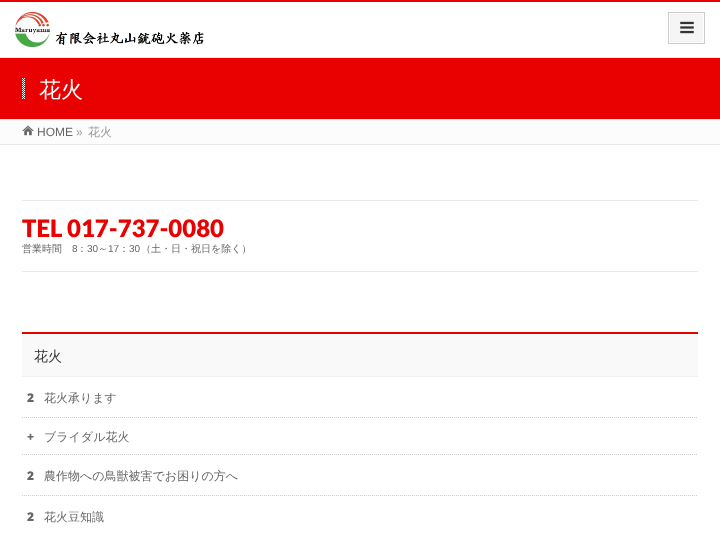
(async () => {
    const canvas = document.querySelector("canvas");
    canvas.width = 720;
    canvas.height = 535;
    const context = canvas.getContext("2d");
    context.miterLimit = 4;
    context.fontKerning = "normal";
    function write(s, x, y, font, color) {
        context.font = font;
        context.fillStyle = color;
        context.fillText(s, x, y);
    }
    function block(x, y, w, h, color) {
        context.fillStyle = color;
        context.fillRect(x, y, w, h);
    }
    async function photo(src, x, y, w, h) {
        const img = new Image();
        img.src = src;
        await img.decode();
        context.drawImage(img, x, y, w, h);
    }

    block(0, 0, 720, 535, "rgb(255, 255, 255)");
    block(0, 0, 720, 2, "rgb(233, 0, 0)");
    await photo("media/1.png", 15, 12, 189, 35);
    block(670, 14, 33, 28, "rgb(245, 245, 245)");
    context.strokeStyle = "rgb(204, 204, 204)";
    context.strokeRect(668.5, 12.5, 36, 31);
    await photo("media/2.png", 680, 21, 14, 13);
    block(0, 58, 720, 61, "rgb(233, 0, 0)");
    block(0, 57, 720, 1, "rgb(233, 233, 233)");
    block(0, 119, 720, 1, "rgb(233, 233, 233)");
    await photo("media/3.png", 22, 78, 3, 21);
    write("花火", 39, 97, "500 22px WenQuanYi Zen Hei", "rgb(255, 255, 255)");
    block(0, 120, 720, 24, "rgb(252, 252, 252)");
    await photo("media/4.png", 22, 125, 12, 11);
    write("HOME", 37, 136, "12px Liberation Sans", "rgb(102, 102, 102)");
    write("»", 76, 136, "12px Liberation Sans", "rgb(153, 153, 153)");
    write("花火", 88, 136, "500 12px WenQuanYi Zen Hei", "rgb(153, 153, 153)");
    block(0, 144, 720, 1, "rgb(233, 233, 233)");
    block(22, 200, 676, 1, "rgb(233, 233, 233)");
    block(22, 271, 676, 1, "rgb(233, 233, 233)");
    context.save();
    context.beginPath();
    context.rect(22, 201, 676, 70);
    context.clip();
    write("TEL 017-737-0080", 22, 237, "900 24px Lato", "rgb(233, 0, 0)");
    context.restore();
    write("営業時間", 22, 252, "500 10px WenQuanYi Zen Hei", "rgb(102, 102, 102)");
    write("8", 72, 252, "10px Liberation Sans", "rgb(102, 102, 102)");
    write("：", 77, 252, "500 10px WenQuanYi Zen Hei", "rgb(102, 102, 102)");
    write("30", 87, 252, "10px Liberation Sans", "rgb(102, 102, 102)");
    write("～", 98, 252, "500 10px WenQuanYi Zen Hei", "rgb(102, 102, 102)");
    write("17", 108, 252, "10px Liberation Sans", "rgb(102, 102, 102)");
    write("：", 119, 252, "500 10px WenQuanYi Zen Hei", "rgb(102, 102, 102)");
    write("30", 129, 252, "10px Liberation Sans", "rgb(102, 102, 102)");
    write("（土・日・祝日を除く）", 141, 252, "500 10px WenQuanYi Zen Hei", "rgb(102, 102, 102)");
    block(22, 334, 676, 42, "rgb(249, 249, 249)");
    block(22, 332, 676, 2, "rgb(233, 0, 0)");
    block(22, 376, 676, 1, "rgb(239, 239, 239)");
    write("花火", 34, 361, "500 14px WenQuanYi Zen Hei", "rgb(51, 51, 51)");
    context.beginPath();
    context.moveTo(22, 454.5);
    context.lineTo(698, 454.5);
    context.setLineDash([1, 1]);
    context.stroke();
    write("2", 27, 402, "900 12px Noto Sans", "rgb(102, 102, 102)");
    write("花火承ります", 44, 402, "500 12px WenQuanYi Zen Hei", "rgb(102, 102, 102)");
    context.beginPath();
    context.moveTo(22, 417.5);
    context.lineTo(698, 417.5);
    context.stroke();
    write("+", 27, 441, "900 12px Noto Sans", "rgb(102, 102, 102)");
    write("ブライダル花火", 44, 441, "500 12px WenQuanYi Zen Hei", "rgb(102, 102, 102)");
    context.beginPath();
    context.moveTo(22, 495.5);
    context.lineTo(698, 495.5);
    context.stroke();
    write("2", 27, 480, "900 12px Noto Sans", "rgb(102, 102, 102)");
    write("農作物への鳥獣被害でお困りの方へ", 44, 480, "500 12px WenQuanYi Zen Hei", "rgb(102, 102, 102)");
    write("2", 27, 521, "900 12px Noto Sans", "rgb(102, 102, 102)");
    write("花火豆知識", 44, 521, "500 12px WenQuanYi Zen Hei", "rgb(102, 102, 102)");
})();
